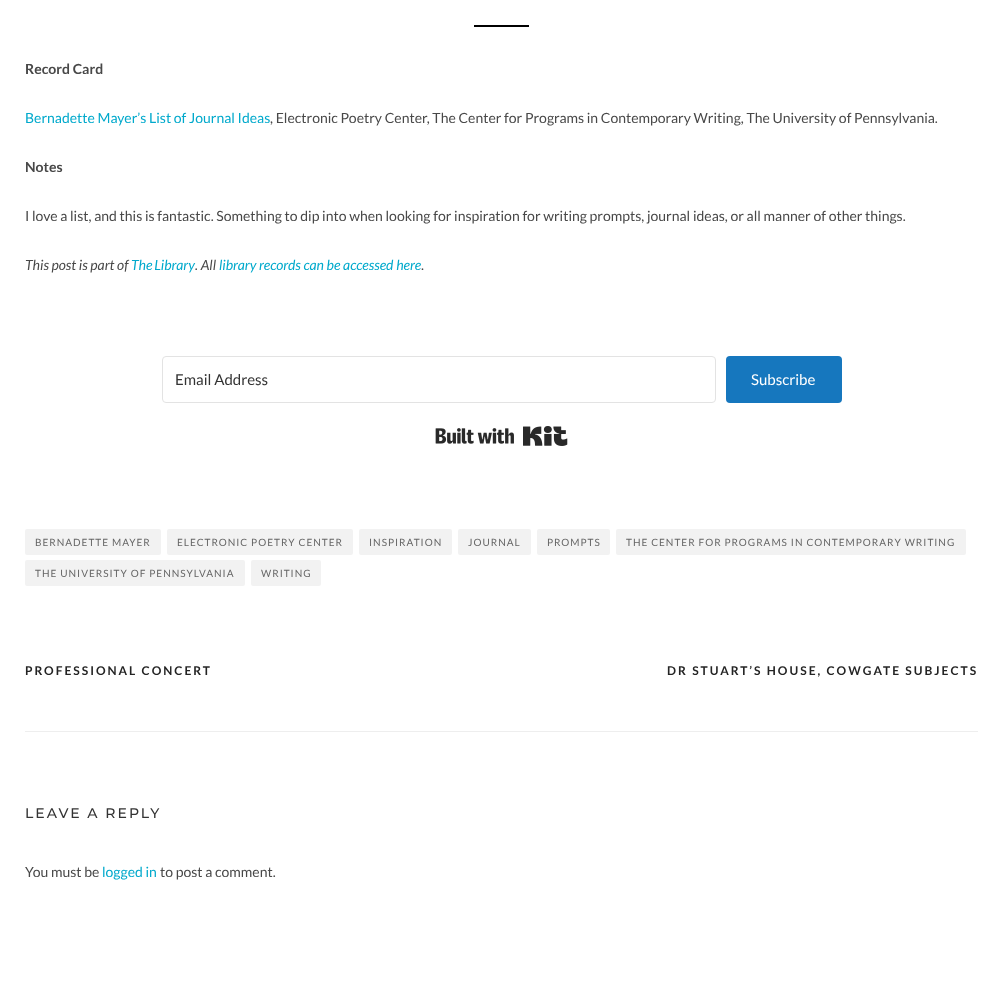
(async () => {
    const canvas = document.querySelector("canvas");
    canvas.width = 1003;
    canvas.height = 988;
    const context = canvas.getContext("2d");
    context.miterLimit = 4;
    context.fontKerning = "normal";
    function write(s, x, y, font, color) {
        context.font = font;
        context.fillStyle = color;
        context.fillText(s, x, y);
    }
    function block(x, y, w, h, color) {
        context.fillStyle = color;
        context.fillRect(x, y, w, h);
    }
    function card(x, y, w, h, r, color) {
        context.fillStyle = color;
        context.beginPath();
        context.roundRect(x, y, w, h, r);
        context.fill();
    }
    async function photo(src, x, y, w, h) {
        const img = new Image();
        img.src = src;
        await img.decode();
        context.drawImage(img, x, y, w, h);
    }

    block(0, 0, 1003, 988, "rgb(255, 255, 255)");
    block(474, 25, 55, 2, "rgb(0, 0, 0)");
    write("Record Card", 25, 74, "bold 14px Lato", "rgb(72, 72, 72)");
    write("Bernadette Mayer’s List of Journal Ideas", 25, 123, "14px Lato", "rgb(0, 169, 204)");
    write(", Electronic Poetry Center, The Center for Programs in Contemporary Writing, The University of Pennsylvania.", 270, 123, "14px Lato", "rgb(72, 72, 72)");
    write("Notes", 25, 172, "bold 14px Lato", "rgb(72, 72, 72)");
    write("I love a list, and this is fantastic. Something to dip into when looking for inspiration for writing prompts, journal ideas, or all manner of other things.", 25, 221, "14px Lato", "rgb(72, 72, 72)");
    write("This post is part of", 25, 270, "italic 14px Lato", "rgb(72, 72, 72)");
    context.wordSpacing = "-1px";
    write("The Library", 131, 270, "italic 14px Lato", "rgb(0, 169, 204)");
    context.wordSpacing = "0px";
    write(". All", 195, 270, "italic 14px Lato", "rgb(72, 72, 72)");
    write("library records can be accessed here", 219, 270, "italic 14px Lato", "rgb(0, 169, 204)");
    write(".", 421, 270, "14px Lato", "rgb(72, 72, 72)");
    context.beginPath();
    context.roundRect(162.5, 356.5, 553, 46, 3.5);
    context.strokeStyle = "rgb(227, 227, 227)";
    context.stroke();
    write("Email Address", 175, 385, "15px Lato", "rgb(51, 51, 51)");
    card(726, 356, 116, 47, 4, "rgb(22, 119, 190)");
    write("Subscribe", 751, 385, "15px Lato", "rgb(255, 255, 255)");
    await photo("media/1.png", 435, 426, 133, 20);
    card(25, 529, 136, 26, 2, "rgb(242, 242, 242)");
    context.letterSpacing = "1px";
    write("BERNADETTE MAYER", 35, 546, "10px Lato", "rgb(102, 102, 102)");
    card(167, 529, 186, 26, 2, "rgb(242, 242, 242)");
    write("ELECTRONIC POETRY CENTER", 177, 546, "10px Lato", "rgb(102, 102, 102)");
    card(359, 529, 93, 26, 2, "rgb(242, 242, 242)");
    write("INSPIRATION", 369, 546, "10px Lato", "rgb(102, 102, 102)");
    card(458, 529, 73, 26, 2, "rgb(242, 242, 242)");
    write("JOURNAL", 468, 546, "10px Lato", "rgb(102, 102, 102)");
    card(537, 529, 73, 26, 2, "rgb(242, 242, 242)");
    write("PROMPTS", 547, 546, "10px Lato", "rgb(102, 102, 102)");
    card(616, 529, 350, 26, 2, "rgb(242, 242, 242)");
    write("THE CENTER FOR PROGRAMS IN CONTEMPORARY WRITING", 626, 546, "10px Lato", "rgb(102, 102, 102)");
    card(25, 560, 220, 26, 2, "rgb(242, 242, 242)");
    write("THE UNIVERSITY OF PENNSYLVANIA", 35, 577, "10px Lato", "rgb(102, 102, 102)");
    card(251, 560, 70, 26, 2, "rgb(242, 242, 242)");
    write("WRITING", 261, 577, "10px Lato", "rgb(102, 102, 102)");
    block(25, 731, 953, 1, "rgb(238, 238, 238)");
    context.letterSpacing = "2px";
    write("PROFESSIONAL CONCERT", 25, 675, "bold 12px Lato", "rgb(36, 36, 36)");
    write("DR STUART’S HOUSE, COWGATE SUBJECTS", 667, 675, "bold 12px Lato", "rgb(36, 36, 36)");
    write("LEAVE A REPLY", 25, 818, "500 14px Montserrat", "rgb(51, 51, 51)");
    context.letterSpacing = "0px";
    write("You must be", 25, 877, "14px Lato", "rgb(72, 72, 72)");
    write("logged in", 102, 877, "14px Lato", "rgb(0, 169, 204)");
    write("to post a comment.", 160, 877, "14px Lato", "rgb(72, 72, 72)");
})();
